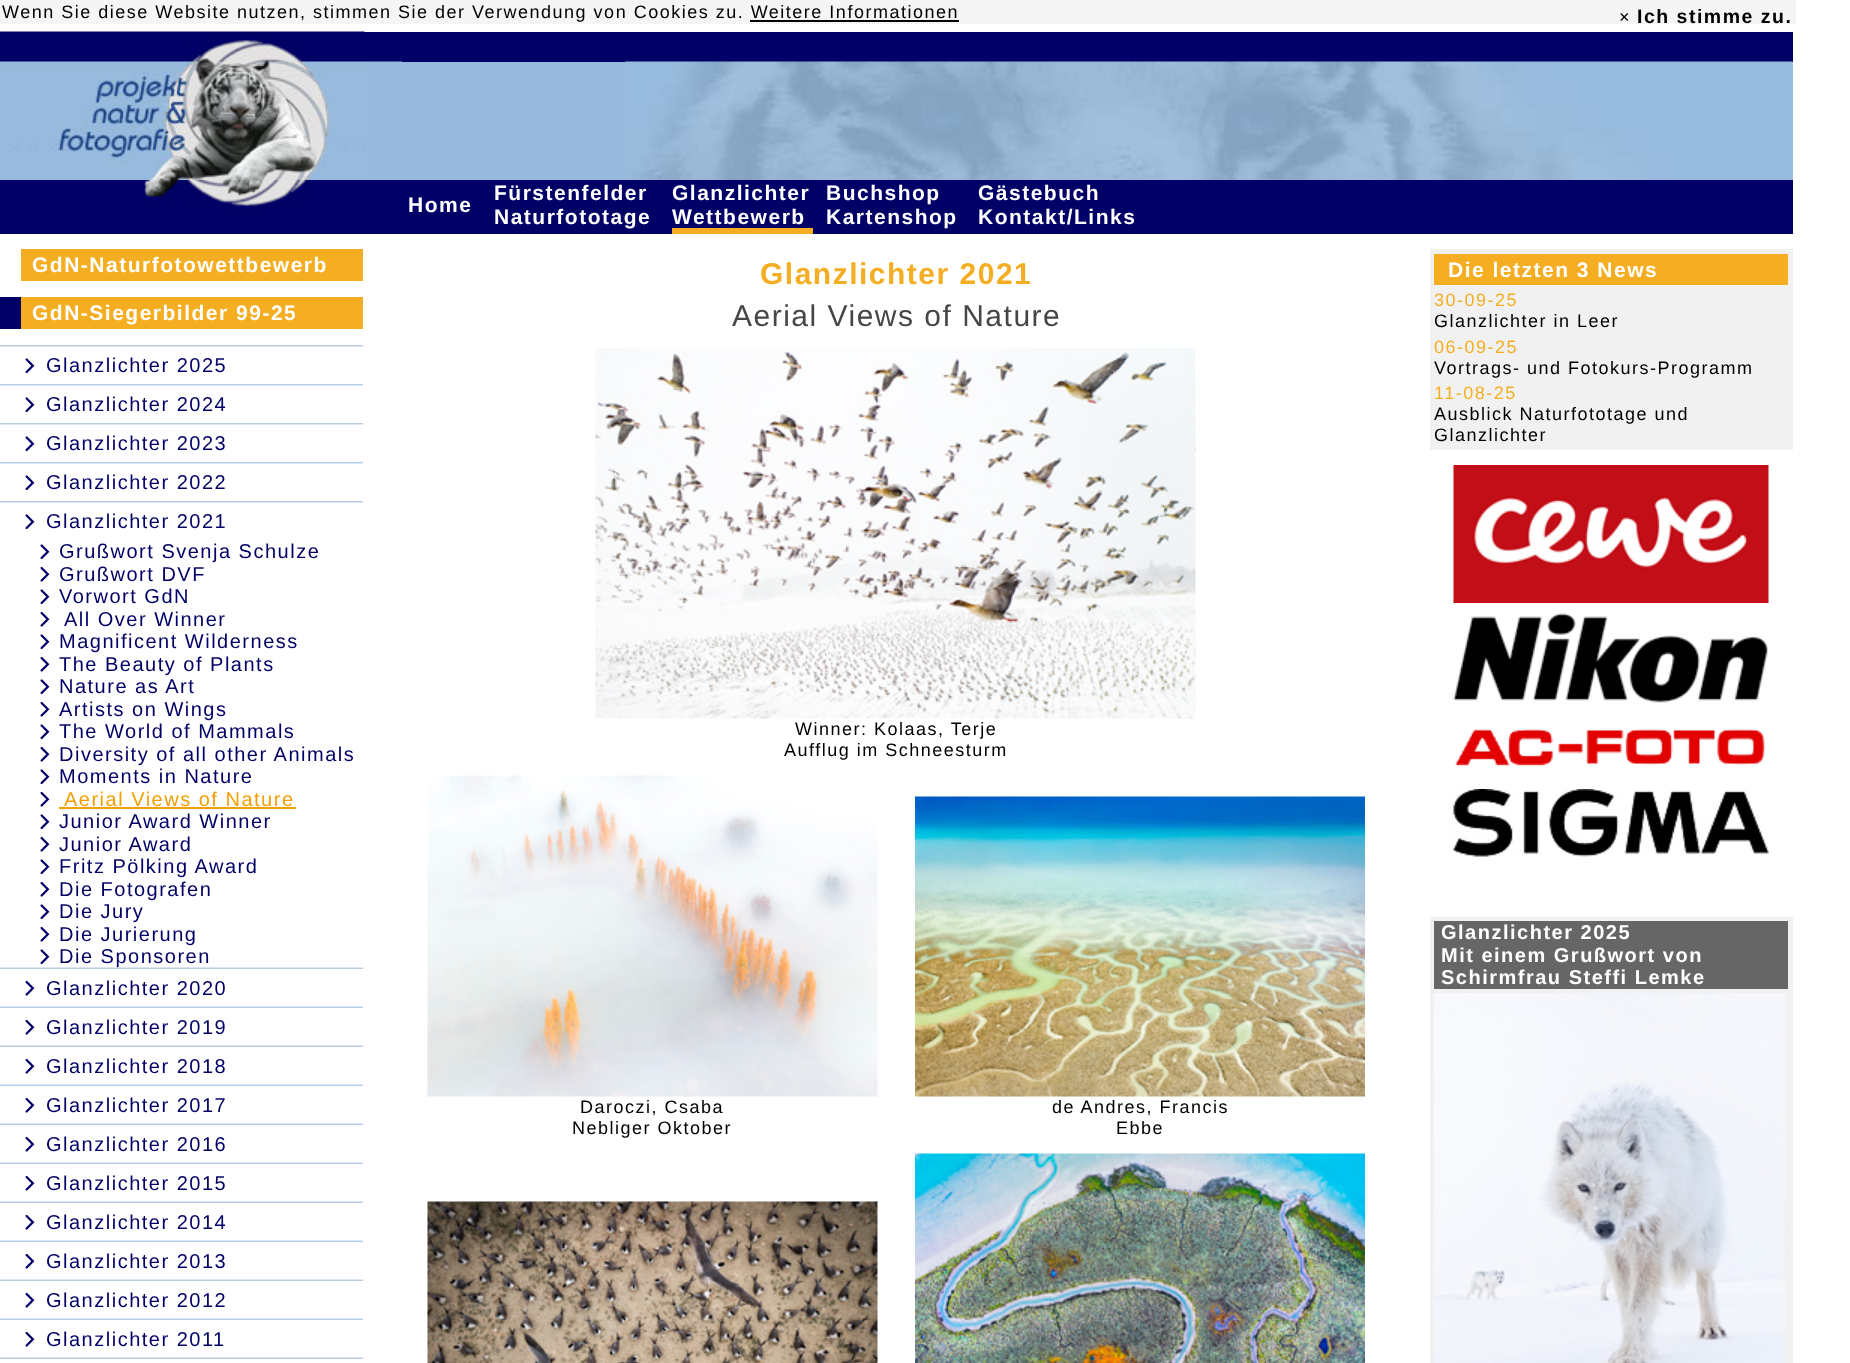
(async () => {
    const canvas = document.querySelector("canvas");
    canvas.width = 1850;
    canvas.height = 1363;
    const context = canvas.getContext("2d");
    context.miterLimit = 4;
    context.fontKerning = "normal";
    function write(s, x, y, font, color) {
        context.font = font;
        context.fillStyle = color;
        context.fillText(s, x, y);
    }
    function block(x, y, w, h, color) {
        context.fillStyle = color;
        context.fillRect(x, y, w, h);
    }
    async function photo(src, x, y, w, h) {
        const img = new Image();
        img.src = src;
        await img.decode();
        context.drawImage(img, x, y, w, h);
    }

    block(0, 0, 1850, 1363, "rgb(255, 255, 255)");
    block(0, 0, 1796, 24, "rgb(245, 245, 245)");
    context.letterSpacing = "1.5px";
    write("Wenn Sie diese Website nutzen, stimmen Sie der Verwendung von Cookies zu. Weitere Informationen", 2, 18, "18px Liberation Sans", "rgb(0, 0, 0)");
    block(750, 20, 209, 2, "rgb(0, 0, 0)");
    write("×", 1619, 23, "18px Liberation Sans", "rgb(0, 0, 0)");
    write("Ich stimme zu.", 1637, 23, "bold 19.5px Liberation Sans", "rgb(0, 0, 0)");
    block(364, 32, 1429, 30, "rgb(0, 0, 102)");
    block(364, 62, 1429, 118, "rgb(151, 186, 220)");
    await photo("media/1.png", 0, 31, 365, 149);
    await photo("media/2.png", 364, 61, 38, 1);
    await photo("media/3.png", 625, 61, 760, 119);
    await photo("media/4.png", 1384, 61, 46, 119);
    await photo("media/5.png", 1429, 61, 364, 119);
    block(0, 180, 1793, 54, "rgb(0, 0, 102)");
    await photo("media/6.png", 144, 180, 166, 34);
    write("Home", 408, 212, "bold 21px Liberation Sans", "rgb(255, 255, 255)");
    write("Fürstenfelder", 494, 200, "bold 21px Liberation Sans", "rgb(255, 255, 255)");
    write("Naturfototage", 494, 224, "bold 21px Liberation Sans", "rgb(255, 255, 255)");
    write("Glanzlichter", 672, 200, "bold 21px Liberation Sans", "rgb(255, 255, 255)");
    write("Wettbewerb", 672, 224, "bold 21px Liberation Sans", "rgb(255, 255, 255)");
    write("Buchshop", 826, 200, "bold 21px Liberation Sans", "rgb(255, 255, 255)");
    write("Kartenshop", 826, 224, "bold 21px Liberation Sans", "rgb(255, 255, 255)");
    write("Gästebuch", 978, 200, "bold 21px Liberation Sans", "rgb(255, 255, 255)");
    write("Kontakt/Links", 978, 224, "bold 21px Liberation Sans", "rgb(255, 255, 255)");
    block(672, 228, 141, 6, "rgb(245, 174, 34)");
    block(21, 249, 342, 32, "rgb(245, 174, 34)");
    write("GdN-Naturfotowettbewerb", 32, 272, "bold 21px Liberation Sans", "rgb(255, 255, 255)");
    block(0, 297, 21, 32, "rgb(0, 0, 102)");
    block(21, 297, 342, 32, "rgb(245, 174, 34)");
    write("GdN-Siegerbilder 99-25", 32, 320, "bold 21px Liberation Sans", "rgb(255, 255, 255)");
    await photo("media/7.png", 0, 345, 363, 2);
    await photo("media/8.png", 25, 358, 10, 16);
    write("Glanzlichter 2025", 46, 372, "20px Liberation Sans", "rgb(0, 0, 102)");
    await photo("media/7.png", 0, 384, 363, 2);
    await photo("media/8.png", 25, 397, 10, 16);
    write("Glanzlichter 2024", 46, 411, "20px Liberation Sans", "rgb(0, 0, 102)");
    await photo("media/7.png", 0, 423, 363, 2);
    await photo("media/8.png", 25, 436, 10, 16);
    write("Glanzlichter 2023", 46, 450, "20px Liberation Sans", "rgb(0, 0, 102)");
    await photo("media/7.png", 0, 462, 363, 2);
    await photo("media/8.png", 25, 475, 10, 16);
    write("Glanzlichter 2022", 46, 489, "20px Liberation Sans", "rgb(0, 0, 102)");
    await photo("media/7.png", 0, 501, 363, 2);
    await photo("media/8.png", 25, 514, 10, 16);
    write("Glanzlichter 2021", 46, 528, "20px Liberation Sans", "rgb(0, 0, 102)");
    await photo("media/8.png", 40, 544, 10, 16);
    write("Grußwort Svenja Schulze", 59, 558, "20px Liberation Sans", "rgb(0, 0, 102)");
    await photo("media/9.png", 40, 566, 10, 16);
    write("Grußwort DVF", 59, 581, "20px Liberation Sans", "rgb(0, 0, 102)");
    await photo("media/8.png", 40, 589, 10, 16);
    write("Vorwort GdN", 59, 603, "20px Liberation Sans", "rgb(0, 0, 102)");
    await photo("media/9.png", 40, 611, 10, 16);
    write("All Over Winner", 64, 626, "20px Liberation Sans", "rgb(0, 0, 102)");
    await photo("media/8.png", 40, 634, 10, 16);
    write("Magnificent Wilderness", 59, 648, "20px Liberation Sans", "rgb(0, 0, 102)");
    await photo("media/9.png", 40, 656, 10, 16);
    write("The Beauty of Plants", 59, 671, "20px Liberation Sans", "rgb(0, 0, 102)");
    await photo("media/8.png", 40, 679, 10, 16);
    write("Nature as Art", 59, 693, "20px Liberation Sans", "rgb(0, 0, 102)");
    await photo("media/9.png", 40, 701, 10, 16);
    write("Artists on Wings", 59, 716, "20px Liberation Sans", "rgb(0, 0, 102)");
    await photo("media/8.png", 40, 724, 10, 16);
    write("The World of Mammals", 59, 738, "20px Liberation Sans", "rgb(0, 0, 102)");
    await photo("media/9.png", 40, 746, 10, 16);
    write("Diversity of all other Animals", 59, 761, "20px Liberation Sans", "rgb(0, 0, 102)");
    await photo("media/8.png", 40, 769, 10, 16);
    write("Moments in Nature", 59, 783, "20px Liberation Sans", "rgb(0, 0, 102)");
    await photo("media/9.png", 40, 791, 10, 16);
    write("Aerial Views of Nature", 64, 806, "20px Liberation Sans", "rgb(244, 160, 4)");
    block(59, 807, 237, 2, "rgb(244, 160, 4)");
    await photo("media/8.png", 40, 814, 10, 16);
    write("Junior Award Winner", 59, 828, "20px Liberation Sans", "rgb(0, 0, 102)");
    await photo("media/9.png", 40, 836, 10, 16);
    write("Junior Award", 59, 851, "20px Liberation Sans", "rgb(0, 0, 102)");
    await photo("media/8.png", 40, 859, 10, 16);
    write("Fritz Pölking Award", 59, 873, "20px Liberation Sans", "rgb(0, 0, 102)");
    await photo("media/9.png", 40, 881, 10, 16);
    write("Die Fotografen", 59, 896, "20px Liberation Sans", "rgb(0, 0, 102)");
    await photo("media/8.png", 40, 904, 10, 16);
    write("Die Jury", 59, 918, "20px Liberation Sans", "rgb(0, 0, 102)");
    await photo("media/9.png", 40, 926, 10, 16);
    write("Die Jurierung", 59, 941, "20px Liberation Sans", "rgb(0, 0, 102)");
    await photo("media/8.png", 40, 949, 10, 16);
    write("Die Sponsoren", 59, 963, "20px Liberation Sans", "rgb(0, 0, 102)");
    await photo("media/10.png", 0, 967, 363, 2);
    await photo("media/9.png", 25, 980, 10, 16);
    write("Glanzlichter 2020", 46, 995, "20px Liberation Sans", "rgb(0, 0, 102)");
    await photo("media/11.png", 0, 1006, 363, 2);
    await photo("media/9.png", 25, 1019, 10, 16);
    write("Glanzlichter 2019", 46, 1034, "20px Liberation Sans", "rgb(0, 0, 102)");
    await photo("media/11.png", 0, 1045, 363, 2);
    await photo("media/9.png", 25, 1058, 10, 16);
    write("Glanzlichter 2018", 46, 1073, "20px Liberation Sans", "rgb(0, 0, 102)");
    await photo("media/11.png", 0, 1084, 363, 2);
    await photo("media/9.png", 25, 1097, 10, 16);
    write("Glanzlichter 2017", 46, 1112, "20px Liberation Sans", "rgb(0, 0, 102)");
    await photo("media/11.png", 0, 1123, 363, 2);
    await photo("media/9.png", 25, 1136, 10, 16);
    write("Glanzlichter 2016", 46, 1151, "20px Liberation Sans", "rgb(0, 0, 102)");
    await photo("media/11.png", 0, 1162, 363, 2);
    await photo("media/9.png", 25, 1175, 10, 16);
    write("Glanzlichter 2015", 46, 1190, "20px Liberation Sans", "rgb(0, 0, 102)");
    await photo("media/11.png", 0, 1201, 363, 2);
    await photo("media/9.png", 25, 1214, 10, 16);
    write("Glanzlichter 2014", 46, 1229, "20px Liberation Sans", "rgb(0, 0, 102)");
    await photo("media/11.png", 0, 1240, 363, 2);
    await photo("media/9.png", 25, 1253, 10, 16);
    write("Glanzlichter 2013", 46, 1268, "20px Liberation Sans", "rgb(0, 0, 102)");
    await photo("media/11.png", 0, 1279, 363, 2);
    await photo("media/9.png", 25, 1292, 10, 16);
    write("Glanzlichter 2012", 46, 1307, "20px Liberation Sans", "rgb(0, 0, 102)");
    await photo("media/11.png", 0, 1318, 363, 2);
    await photo("media/9.png", 25, 1331, 10, 16);
    write("Glanzlichter 2011", 46, 1346, "20px Liberation Sans", "rgb(0, 0, 102)");
    await photo("media/11.png", 0, 1357, 363, 2);
    write("Glanzlichter 2021", 760, 284, "bold 30px Liberation Sans", "rgb(245, 174, 34)");
    write("Aerial Views of Nature", 732, 326, "30px Liberation Sans", "rgb(70, 70, 70)");
    await photo("media/12.png", 595, 348, 601, 371);
    write("Winner: Kolaas, Terje", 795, 735, "18px Liberation Sans", "rgb(0, 0, 0)");
    write("Aufflug im Schneesturm", 784, 756, "18px Liberation Sans", "rgb(0, 0, 0)");
    await photo("media/13.png", 427, 775, 451, 322);
    write("Daroczi, Csaba", 580, 1113, "18px Liberation Sans", "rgb(0, 0, 0)");
    write("Nebliger Oktober", 572, 1134, "18px Liberation Sans", "rgb(0, 0, 0)");
    await photo("media/14.png", 915, 796, 450, 301);
    write("de Andres, Francis", 1052, 1113, "18px Liberation Sans", "rgb(0, 0, 0)");
    write("Ebbe", 1116, 1134, "18px Liberation Sans", "rgb(0, 0, 0)");
    await photo("media/15.png", 427, 1201, 451, 162);
    await photo("media/16.png", 915, 1153, 450, 210);
    block(1430, 249, 363, 201, "rgb(241, 241, 241)");
    block(1434, 254, 354, 31, "rgb(245, 174, 34)");
    write("Die letzten 3 News", 1448, 277, "bold 21px Liberation Sans", "rgb(255, 255, 255)");
    write("30-09-25", 1434, 306, "18px Liberation Sans", "rgb(245, 174, 34)");
    write("Glanzlichter in Leer", 1434, 327, "18px Liberation Sans", "rgb(0, 0, 0)");
    write("06-09-25", 1434, 353, "18px Liberation Sans", "rgb(245, 174, 34)");
    write("Vortrags- und Fotokurs-Programm", 1434, 374, "18px Liberation Sans", "rgb(0, 0, 0)");
    write("11-08-25", 1434, 399, "18px Liberation Sans", "rgb(245, 174, 34)");
    write("Ausblick Naturfototage und", 1434, 420, "18px Liberation Sans", "rgb(0, 0, 0)");
    write("Glanzlichter", 1434, 441, "18px Liberation Sans", "rgb(0, 0, 0)");
    await photo("media/17.png", 1453, 465, 316, 138);
    await photo("media/18.png", 1453, 613, 316, 90);
    await photo("media/19.png", 1455, 728, 310, 38);
    await photo("media/20.png", 1453, 789, 316, 68);
    block(1430, 917, 363, 446, "rgb(241, 241, 241)");
    block(1434, 921, 354, 68, "rgb(102, 102, 102)");
    write("Glanzlichter 2025", 1441, 939, "bold 20px Liberation Sans", "rgb(255, 255, 255)");
    write("Mit einem Grußwort von", 1441, 962, "bold 20px Liberation Sans", "rgb(255, 255, 255)");
    write("Schirmfrau Steffi Lemke", 1441, 984, "bold 20px Liberation Sans", "rgb(255, 255, 255)");
    await photo("media/21.png", 1434, 993, 351, 370);
})();
